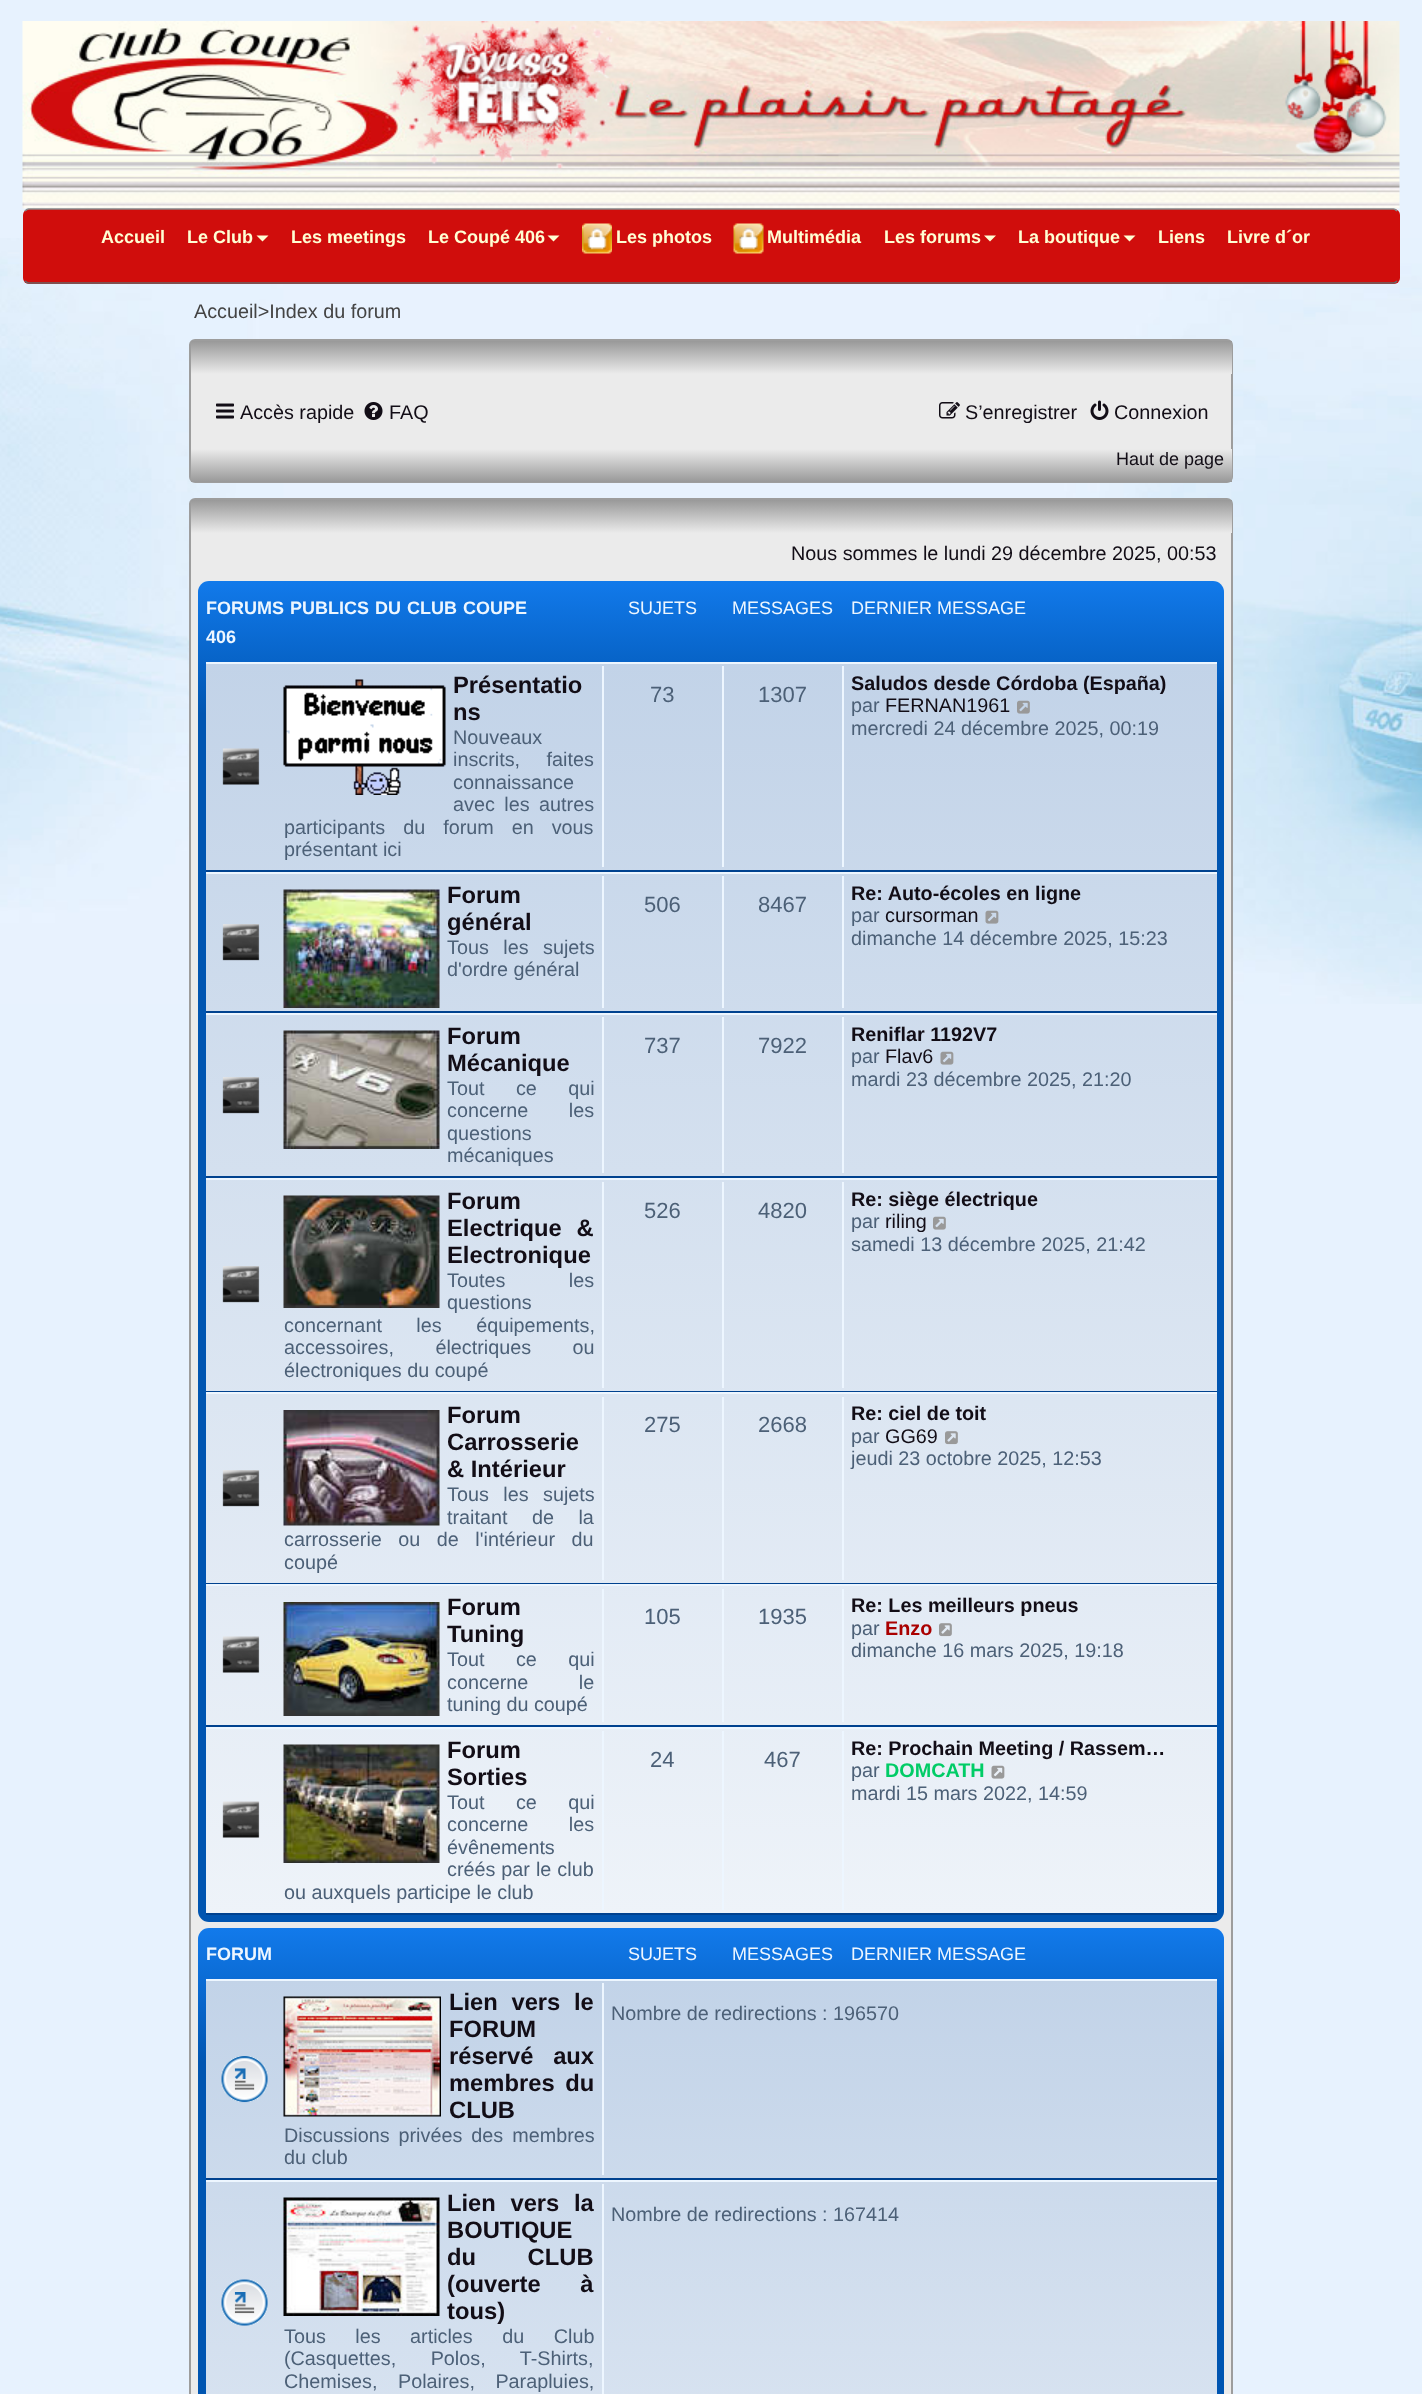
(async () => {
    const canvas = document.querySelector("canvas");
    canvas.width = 1422;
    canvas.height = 2394;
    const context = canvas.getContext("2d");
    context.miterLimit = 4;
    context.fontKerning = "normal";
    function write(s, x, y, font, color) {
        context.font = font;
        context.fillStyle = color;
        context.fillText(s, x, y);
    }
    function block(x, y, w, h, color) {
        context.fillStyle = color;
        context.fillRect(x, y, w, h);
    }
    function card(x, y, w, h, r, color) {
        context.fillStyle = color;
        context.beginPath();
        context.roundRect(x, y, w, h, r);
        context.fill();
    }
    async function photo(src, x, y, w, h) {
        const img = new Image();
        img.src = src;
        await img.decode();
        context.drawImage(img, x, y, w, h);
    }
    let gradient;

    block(0, 0, 1422, 2394, "rgb(231, 242, 254)");
    await photo("media/1.png", 0, 238, 1422, 766);
    await photo("media/2.png", 22, 21, 1378, 188);
    card(23, 209, 1377, 75, 6, "rgb(208, 13, 12)");
    context.beginPath();
    context.moveTo(25, 211);
    context.bezierCurveTo(26, 210, 27, 209, 28.5, 209);
    context.lineTo(1393.5, 209);
    context.bezierCurveTo(1395, 209, 1396, 210, 1397, 211);
    context.strokeStyle = "rgb(136, 136, 136)";
    context.lineWidth = 1.5;
    context.stroke();
    context.beginPath();
    context.moveTo(1397, 281);
    context.bezierCurveTo(1396, 282, 1395, 283, 1393.5, 283);
    context.lineTo(28.5, 283);
    context.bezierCurveTo(27, 283, 26, 282, 25, 281);
    context.strokeStyle = "rgb(102, 102, 102)";
    context.stroke();
    write("Accueil", 101, 243, "bold 18px Liberation Sans", "rgb(255, 255, 212)");
    write("Le Club", 187, 243, "bold 18px Liberation Sans", "rgb(255, 255, 212)");
    context.beginPath();
    context.moveTo(256.5, 235.5);
    context.lineTo(268.5, 235.5);
    context.lineTo(262.5, 241.5);
    context.closePath();
    context.fill();
    write("Les meetings", 291, 243, "bold 18px Liberation Sans", "rgb(255, 255, 212)");
    write("Le Coupé 406", 428, 243, "bold 18px Liberation Sans", "rgb(255, 255, 212)");
    context.beginPath();
    context.moveTo(547.5, 235.5);
    context.lineTo(559.5, 235.5);
    context.lineTo(553.5, 241.5);
    context.closePath();
    context.fill();
    await photo("media/3.png", 582, 223, 30, 31);
    write("Les photos", 616, 243, "bold 18px Liberation Sans", "rgb(255, 255, 212)");
    await photo("media/4.png", 733, 223, 31, 31);
    write("Multimédia", 767, 243, "bold 18px Liberation Sans", "rgb(255, 255, 212)");
    write("Les forums", 884, 243, "bold 18px Liberation Sans", "rgb(255, 255, 212)");
    context.beginPath();
    context.moveTo(984, 235.5);
    context.lineTo(996, 235.5);
    context.lineTo(990, 241.5);
    context.closePath();
    context.fill();
    write("La boutique", 1018, 243, "bold 18px Liberation Sans", "rgb(255, 255, 212)");
    context.beginPath();
    context.moveTo(1123.5, 235.5);
    context.lineTo(1135.5, 235.5);
    context.lineTo(1129.5, 241.5);
    context.closePath();
    context.fill();
    write("Liens", 1158, 243, "bold 18px Liberation Sans", "rgb(255, 255, 212)");
    write("Livre d´or", 1227, 243, "bold 18px Liberation Sans", "rgb(255, 255, 212)");
    write("Accueil>Index du forum", 194, 318, "19.8px Liberation Sans", "rgb(68, 68, 68)");
    context.fillStyle = "rgb(235, 235, 235)";
    context.beginPath();
    context.roundRect(190, 340, 1042, 142, 5);
    context.fill();
    context.strokeStyle = "rgb(157, 157, 157)";
    context.lineWidth = 2;
    context.stroke();
    gradient = context.createLinearGradient(711, 374, 711, 341);
    gradient.addColorStop(0, "rgb(235, 235, 235)");
    gradient.addColorStop(1, "rgb(153, 153, 153)");
    context.fillStyle = gradient;
    context.fillRect(191, 341, 1041, 33);
    await photo("media/5.png", 216, 403, 18, 16);
    write("Accès rapide", 240, 419, "19.8px Liberation Sans", "rgb(18, 13, 22)");
    await photo("media/6.png", 364, 402, 19, 18);
    write("FAQ", 389, 419, "19.8px Liberation Sans", "rgb(18, 13, 22)");
    await photo("media/7.png", 939, 402, 21, 17);
    write("S’enregistrer", 965, 419, "19.8px Liberation Sans", "rgb(18, 13, 22)");
    await photo("media/8.png", 1090, 400, 19, 20);
    write("Connexion", 1114, 419, "19.8px Liberation Sans", "rgb(18, 13, 22)");
    gradient = context.createLinearGradient(711, 482, 711, 449);
    gradient.addColorStop(0, "rgb(153, 153, 153)");
    gradient.addColorStop(1, "rgb(235, 235, 235)");
    context.fillStyle = gradient;
    context.fillRect(191, 449, 1041, 33);
    write("Haut de page", 1116, 465, "18px Liberation Sans", "rgb(18, 13, 22)");
    context.fillStyle = "rgb(235, 235, 235)";
    context.beginPath();
    context.roundRect(190, 499, 1042, 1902, 5);
    context.fill();
    context.stroke();
    gradient = context.createLinearGradient(711, 533, 711, 500);
    gradient.addColorStop(0, "rgb(235, 235, 235)");
    gradient.addColorStop(1, "rgb(153, 153, 153)");
    context.fillStyle = gradient;
    context.fillRect(191, 500, 1041, 33);
    write("Nous sommes le lundi 29 décembre 2025, 00:53", 791, 560, "19.8px Liberation Sans", "rgb(18, 13, 22)");
    gradient = context.createLinearGradient(711, 580, 711, 1922);
    gradient.addColorStop(0, "rgb(105, 178, 255)");
    gradient.addColorStop(0, "rgb(18, 122, 235)");
    gradient.addColorStop(0.1, "rgb(0, 85, 177)");
    gradient.addColorStop(1, "rgb(0, 85, 177)");
    context.fillStyle = gradient;
    context.beginPath();
    context.roundRect(198, 581, 1026, 1341, 11);
    context.fill();
    context.wordSpacing = "1px";
    write("FORUMS PUBLICS DU CLUB COUPE", 206, 614, "bold 18px Liberation Sans", "rgb(237, 246, 255)");
    context.save();
    context.beginPath();
    context.rect(206, 588, 1011, 74);
    context.clip();
    context.wordSpacing = "0px";
    write("406", 206, 643, "bold 18px Liberation Sans", "rgb(237, 246, 255)");
    context.restore();
    context.wordSpacing = "0px";
    write("SUJETS", 628, 614, "18px Liberation Sans", "rgb(237, 246, 255)");
    write("MESSAGES", 732, 614, "18px Liberation Sans", "rgb(237, 246, 255)");
    write("DERNIER MESSAGE", 851, 614, "18px Liberation Sans", "rgb(237, 246, 255)");
    gradient = context.createLinearGradient(711, 661, 711, 1914);
    gradient.addColorStop(0, "rgb(194, 211, 232)");
    gradient.addColorStop(1, "rgb(238, 243, 249)");
    context.fillStyle = gradient;
    context.fillRect(206, 664, 1011, 1249);
    block(206, 662, 1011, 2, "rgb(237, 246, 255)");
    block(206, 870, 1011, 2, "rgb(0, 66, 143)");
    await photo("media/9.png", 222, 748, 38, 37);
    await photo("media/10.png", 283, 679, 163, 116);
    write("Présentatio", 453, 693, "bold 23.75px Liberation Sans", "rgb(18, 13, 22)");
    write("ns", 453, 720, "bold 23.75px Liberation Sans", "rgb(18, 13, 22)");
    write("Nouveaux", 453, 744, "19.8px Liberation Sans", "rgb(76, 96, 119)");
    context.wordSpacing = "21px";
    write("inscrits, faites", 453, 766, "19.8px Liberation Sans", "rgb(76, 96, 119)");
    context.wordSpacing = "0px";
    write("connaissance", 453, 789, "19.8px Liberation Sans", "rgb(76, 96, 119)");
    context.wordSpacing = "4px";
    write("avec les autres", 453, 811, "19.8px Liberation Sans", "rgb(76, 96, 119)");
    context.wordSpacing = "12.5px";
    write("participants du forum en vous", 284, 834, "19.8px Liberation Sans", "rgb(76, 96, 119)");
    context.wordSpacing = "0px";
    write("présentant ici", 284, 856, "19.8px Liberation Sans", "rgb(76, 96, 119)");
    block(602, 666, 2, 201, "rgb(237, 246, 255)");
    write("73", 650, 702, "22px Liberation Sans", "rgb(76, 96, 119)");
    block(722, 666, 2, 201, "rgb(237, 246, 255)");
    write("1307", 758, 702, "22px Liberation Sans", "rgb(76, 96, 119)");
    block(842, 666, 2, 201, "rgb(237, 246, 255)");
    write("Saludos desde Córdoba (España)", 851, 690, "bold 19.8px Liberation Sans", "rgb(18, 13, 22)");
    write("par", 851, 712, "19.8px Liberation Sans", "rgb(76, 96, 119)");
    write("FERNAN1961", 885, 712, "19.8px Liberation Sans", "rgb(18, 13, 22)");
    await photo("media/11.png", 1017, 700, 13, 14);
    write("mercredi 24 décembre 2025, 00:19", 851, 735, "19.8px Liberation Sans", "rgb(76, 96, 119)");
    block(206, 872, 1011, 2, "rgb(237, 246, 255)");
    block(206, 1011, 1011, 2, "rgb(0, 66, 143)");
    await photo("media/12.png", 222, 924, 38, 37);
    await photo("media/13.png", 283, 889, 157, 119);
    write("Forum", 447, 903, "bold 23.75px Liberation Sans", "rgb(18, 13, 22)");
    write("général", 447, 930, "bold 23.75px Liberation Sans", "rgb(18, 13, 22)");
    context.wordSpacing = "9px";
    write("Tous les sujets", 447, 954, "19.8px Liberation Sans", "rgb(76, 96, 119)");
    context.wordSpacing = "0px";
    write("d'ordre général", 447, 976, "19.8px Liberation Sans", "rgb(76, 96, 119)");
    block(602, 876, 2, 132, "rgb(237, 246, 255)");
    write("506", 644, 912, "22px Liberation Sans", "rgb(76, 96, 119)");
    block(722, 876, 2, 132, "rgb(237, 246, 255)");
    write("8467", 758, 912, "22px Liberation Sans", "rgb(76, 96, 119)");
    block(842, 876, 2, 132, "rgb(237, 246, 255)");
    write("Re: Auto-écoles en ligne", 851, 900, "bold 19.8px Liberation Sans", "rgb(18, 13, 22)");
    write("par", 851, 922, "19.8px Liberation Sans", "rgb(76, 96, 119)");
    write("cursorman", 885, 922, "19.8px Liberation Sans", "rgb(18, 13, 22)");
    await photo("media/14.png", 985, 910, 14, 14);
    write("dimanche 14 décembre 2025, 15:23", 851, 945, "19.8px Liberation Sans", "rgb(76, 96, 119)");
    block(206, 1013, 1011, 2, "rgb(237, 246, 255)");
    block(206, 1176, 1011, 2, "rgb(0, 66, 143)");
    await photo("media/15.png", 222, 1077, 38, 37);
    await photo("media/16.png", 283, 1030, 157, 119);
    write("Forum", 447, 1044, "bold 23.75px Liberation Sans", "rgb(18, 13, 22)");
    write("Mécanique", 447, 1071, "bold 23.75px Liberation Sans", "rgb(18, 13, 22)");
    context.wordSpacing = "26px";
    write("Tout ce qui", 447, 1095, "19.8px Liberation Sans", "rgb(76, 96, 119)");
    context.wordSpacing = "35px";
    write("concerne les", 447, 1117, "19.8px Liberation Sans", "rgb(76, 96, 119)");
    context.wordSpacing = "0px";
    write("questions", 447, 1140, "19.8px Liberation Sans", "rgb(76, 96, 119)");
    write("mécaniques", 447, 1162, "19.8px Liberation Sans", "rgb(76, 96, 119)");
    block(602, 1017, 2, 156, "rgb(237, 246, 255)");
    write("737", 644, 1053, "22px Liberation Sans", "rgb(76, 96, 119)");
    block(722, 1017, 2, 156, "rgb(237, 246, 255)");
    write("7922", 758, 1053, "22px Liberation Sans", "rgb(76, 96, 119)");
    block(842, 1017, 2, 156, "rgb(237, 246, 255)");
    write("Reniflar 1192V7", 851, 1041, "bold 19.8px Liberation Sans", "rgb(18, 13, 22)");
    write("par", 851, 1063, "19.8px Liberation Sans", "rgb(76, 96, 119)");
    write("Flav6", 885, 1063, "19.8px Liberation Sans", "rgb(18, 13, 22)");
    await photo("media/17.png", 940, 1051, 14, 14);
    write("mardi 23 décembre 2025, 21:20", 851, 1086, "19.8px Liberation Sans", "rgb(76, 96, 119)");
    block(206, 1178, 1011, 2, "rgb(237, 246, 255)");
    block(206, 1391, 1011, 1, "rgb(0, 66, 143)");
    await photo("media/18.png", 222, 1266, 38, 37);
    await photo("media/19.png", 283, 1195, 157, 113);
    write("Forum", 447, 1209, "bold 23.75px Liberation Sans", "rgb(18, 13, 22)");
    context.wordSpacing = "8px";
    write("Electrique &", 447, 1236, "bold 23.75px Liberation Sans", "rgb(18, 13, 22)");
    context.wordSpacing = "0px";
    write("Electronique", 447, 1263, "bold 23.75px Liberation Sans", "rgb(18, 13, 22)");
    context.wordSpacing = "58px";
    write("Toutes les", 447, 1287, "19.8px Liberation Sans", "rgb(76, 96, 119)");
    context.wordSpacing = "0px";
    write("questions", 447, 1309, "19.8px Liberation Sans", "rgb(76, 96, 119)");
    context.wordSpacing = "29px";
    write("concernant les équipements,", 284, 1332, "19.8px Liberation Sans", "rgb(76, 96, 119)");
    context.wordSpacing = "36px";
    write("accessoires, électriques ou", 284, 1354, "19.8px Liberation Sans", "rgb(76, 96, 119)");
    context.wordSpacing = "0px";
    write("électroniques du coupé", 284, 1377, "19.8px Liberation Sans", "rgb(76, 96, 119)");
    block(602, 1182, 2, 206, "rgb(237, 246, 255)");
    write("526", 644, 1218, "22px Liberation Sans", "rgb(76, 96, 119)");
    block(722, 1182, 2, 206, "rgb(237, 246, 255)");
    write("4820", 758, 1218, "22px Liberation Sans", "rgb(76, 96, 119)");
    block(842, 1182, 2, 206, "rgb(237, 246, 255)");
    write("Re: siège électrique", 851, 1206, "bold 19.8px Liberation Sans", "rgb(18, 13, 22)");
    write("par", 851, 1228, "19.8px Liberation Sans", "rgb(76, 96, 119)");
    write("riling", 885, 1228, "19.8px Liberation Sans", "rgb(18, 13, 22)");
    await photo("media/20.png", 933, 1216, 13, 14);
    write("samedi 13 décembre 2025, 21:42", 851, 1251, "19.8px Liberation Sans", "rgb(76, 96, 119)");
    block(206, 1392, 1011, 2, "rgb(237, 246, 255)");
    block(206, 1583, 1011, 1, "rgb(0, 66, 143)");
    await photo("media/21.png", 222, 1470, 38, 37);
    await photo("media/22.png", 283, 1410, 157, 116);
    write("Forum", 447, 1423, "bold 23.75px Liberation Sans", "rgb(18, 13, 22)");
    write("Carrosserie", 447, 1450, "bold 23.75px Liberation Sans", "rgb(18, 13, 22)");
    write("& Intérieur", 447, 1477, "bold 23.75px Liberation Sans", "rgb(18, 13, 22)");
    context.wordSpacing = "9px";
    write("Tous les sujets", 447, 1501, "19.8px Liberation Sans", "rgb(76, 96, 119)");
    context.wordSpacing = "19px";
    write("traitant de la", 447, 1524, "19.8px Liberation Sans", "rgb(76, 96, 119)");
    context.wordSpacing = "11px";
    write("carrosserie ou de l'intérieur du", 284, 1546, "19.8px Liberation Sans", "rgb(76, 96, 119)");
    context.wordSpacing = "0px";
    write("coupé", 284, 1569, "19.8px Liberation Sans", "rgb(76, 96, 119)");
    block(602, 1397, 2, 183, "rgb(237, 246, 255)");
    write("275", 644, 1432, "22px Liberation Sans", "rgb(76, 96, 119)");
    block(722, 1397, 2, 183, "rgb(237, 246, 255)");
    write("2668", 758, 1432, "22px Liberation Sans", "rgb(76, 96, 119)");
    block(842, 1397, 2, 183, "rgb(237, 246, 255)");
    write("Re: ciel de toit", 851, 1420, "bold 19.8px Liberation Sans", "rgb(18, 13, 22)");
    write("par", 851, 1443, "19.8px Liberation Sans", "rgb(76, 96, 119)");
    write("GG69", 885, 1443, "19.8px Liberation Sans", "rgb(18, 13, 22)");
    await photo("media/23.png", 945, 1431, 13, 14);
    write("jeudi 23 octobre 2025, 12:53", 851, 1465, "19.8px Liberation Sans", "rgb(76, 96, 119)");
    block(206, 1584, 1011, 2, "rgb(237, 246, 255)");
    block(206, 1725, 1011, 2, "rgb(0, 66, 143)");
    await photo("media/24.png", 222, 1636, 38, 37);
    await photo("media/25.png", 283, 1602, 157, 114);
    write("Forum", 447, 1615, "bold 23.75px Liberation Sans", "rgb(18, 13, 22)");
    write("Tuning", 447, 1642, "bold 23.75px Liberation Sans", "rgb(18, 13, 22)");
    context.wordSpacing = "26px";
    write("Tout ce qui", 447, 1666, "19.8px Liberation Sans", "rgb(76, 96, 119)");
    context.wordSpacing = "45px";
    write("concerne le", 447, 1689, "19.8px Liberation Sans", "rgb(76, 96, 119)");
    context.wordSpacing = "0px";
    write("tuning du coupé", 447, 1711, "19.8px Liberation Sans", "rgb(76, 96, 119)");
    block(602, 1589, 2, 133, "rgb(237, 246, 255)");
    write("105", 644, 1624, "22px Liberation Sans", "rgb(76, 96, 119)");
    block(722, 1589, 2, 133, "rgb(237, 246, 255)");
    write("1935", 758, 1624, "22px Liberation Sans", "rgb(76, 96, 119)");
    block(842, 1589, 2, 133, "rgb(237, 246, 255)");
    write("Re: Les meilleurs pneus", 851, 1612, "bold 19.8px Liberation Sans", "rgb(18, 13, 22)");
    write("par", 851, 1635, "19.8px Liberation Sans", "rgb(76, 96, 119)");
    write("Enzo", 885, 1635, "bold 19.8px Liberation Sans", "rgb(170, 0, 0)");
    await photo("media/26.png", 939, 1623, 13, 14);
    write("dimanche 16 mars 2025, 19:18", 851, 1657, "19.8px Liberation Sans", "rgb(76, 96, 119)");
    block(206, 1727, 1011, 2, "rgb(237, 246, 255)");
    block(206, 1913, 1011, 2, "rgb(0, 66, 143)");
    await photo("media/27.png", 222, 1801, 38, 37);
    await photo("media/28.png", 283, 1744, 157, 119);
    write("Forum", 447, 1758, "bold 23.75px Liberation Sans", "rgb(18, 13, 22)");
    write("Sorties", 447, 1785, "bold 23.75px Liberation Sans", "rgb(18, 13, 22)");
    context.wordSpacing = "26px";
    write("Tout ce qui", 447, 1809, "19.8px Liberation Sans", "rgb(76, 96, 119)");
    context.wordSpacing = "35px";
    write("concerne les", 447, 1831, "19.8px Liberation Sans", "rgb(76, 96, 119)");
    context.wordSpacing = "0px";
    write("évênements", 447, 1854, "19.8px Liberation Sans", "rgb(76, 96, 119)");
    context.wordSpacing = "0.5px";
    write("créés par le club", 447, 1876, "19.8px Liberation Sans", "rgb(76, 96, 119)");
    context.wordSpacing = "0px";
    write("ou auxquels participe le club", 284, 1899, "19.8px Liberation Sans", "rgb(76, 96, 119)");
    block(602, 1731, 2, 179, "rgb(237, 246, 255)");
    write("24", 650, 1767, "22px Liberation Sans", "rgb(76, 96, 119)");
    block(722, 1731, 2, 179, "rgb(237, 246, 255)");
    write("467", 764, 1767, "22px Liberation Sans", "rgb(76, 96, 119)");
    block(842, 1731, 2, 179, "rgb(237, 246, 255)");
    write("Re: Prochain Meeting / Rassem…", 851, 1755, "bold 19.8px Liberation Sans", "rgb(18, 13, 22)");
    write("par", 851, 1777, "19.8px Liberation Sans", "rgb(76, 96, 119)");
    write("DOMCATH", 885, 1777, "bold 19.8px Liberation Sans", "rgb(0, 204, 102)");
    await photo("media/29.png", 991, 1765, 14, 14);
    write("mardi 15 mars 2022, 14:59", 851, 1800, "19.8px Liberation Sans", "rgb(76, 96, 119)");
    gradient = context.createLinearGradient(711, 1928, 711, 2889);
    gradient.addColorStop(0, "rgb(105, 178, 255)");
    gradient.addColorStop(0, "rgb(18, 122, 235)");
    gradient.addColorStop(0.14, "rgb(0, 85, 177)");
    gradient.addColorStop(1, "rgb(0, 85, 177)");
    context.fillStyle = gradient;
    context.beginPath();
    context.roundRect(198, 1928, 1026, 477, 11);
    context.fill();
    write("FORUM", 206, 1960, "bold 18px Liberation Sans", "rgb(237, 246, 255)");
    write("SUJETS", 628, 1960, "18px Liberation Sans", "rgb(237, 246, 255)");
    write("MESSAGES", 732, 1960, "18px Liberation Sans", "rgb(237, 246, 255)");
    write("DERNIER MESSAGE", 851, 1960, "18px Liberation Sans", "rgb(237, 246, 255)");
    gradient = context.createLinearGradient(711, 1979, 711, 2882);
    gradient.addColorStop(0, "rgb(194, 211, 232)");
    gradient.addColorStop(1, "rgb(238, 243, 249)");
    context.fillStyle = gradient;
    context.fillRect(206, 1981, 1011, 413);
    block(206, 1979, 1011, 2, "rgb(237, 246, 255)");
    block(206, 2178, 1011, 2, "rgb(0, 66, 143)");
    await photo("media/30.png", 221, 2056, 47, 47);
    await photo("media/31.png", 283, 1996, 158, 121);
    context.wordSpacing = "7px";
    write("Lien vers le", 449, 2010, "bold 23.75px Liberation Sans", "rgb(18, 13, 22)");
    context.wordSpacing = "0px";
    write("FORUM", 449, 2037, "bold 23.75px Liberation Sans", "rgb(18, 13, 22)");
    context.wordSpacing = "13px";
    write("réservé aux", 449, 2064, "bold 23.75px Liberation Sans", "rgb(18, 13, 22)");
    context.wordSpacing = "4px";
    write("membres du", 449, 2091, "bold 23.75px Liberation Sans", "rgb(18, 13, 22)");
    context.wordSpacing = "0px";
    write("CLUB", 449, 2118, "bold 23.75px Liberation Sans", "rgb(18, 13, 22)");
    context.wordSpacing = "3.5px";
    write("Discussions privées des membres", 284, 2142, "19.8px Liberation Sans", "rgb(76, 96, 119)");
    context.wordSpacing = "0px";
    write("du club", 284, 2164, "19.8px Liberation Sans", "rgb(76, 96, 119)");
    block(602, 1983, 2, 192, "rgb(237, 246, 255)");
    write("Nombre de redirections : 196570", 611, 2020, "19.8px Liberation Sans", "rgb(76, 96, 119)");
    block(206, 2180, 1011, 2, "rgb(237, 246, 255)");
    await photo("media/32.png", 221, 2279, 47, 47);
    await photo("media/33.png", 283, 2197, 157, 119);
    context.wordSpacing = "8px";
    write("Lien vers la", 447, 2211, "bold 23.75px Liberation Sans", "rgb(18, 13, 22)");
    context.wordSpacing = "0px";
    write("BOUTIQUE", 447, 2238, "bold 23.75px Liberation Sans", "rgb(18, 13, 22)");
    context.wordSpacing = "45px";
    write("du CLUB", 447, 2265, "bold 23.75px Liberation Sans", "rgb(18, 13, 22)");
    context.wordSpacing = "33px";
    write("(ouverte à", 447, 2292, "bold 23.75px Liberation Sans", "rgb(18, 13, 22)");
    context.wordSpacing = "0px";
    write("tous)", 447, 2319, "bold 23.75px Liberation Sans", "rgb(18, 13, 22)");
    context.wordSpacing = "24px";
    write("Tous les articles du Club", 284, 2343, "19.8px Liberation Sans", "rgb(76, 96, 119)");
    context.wordSpacing = "29px";
    write("(Casquettes, Polos, T-Shirts,", 284, 2365, "19.8px Liberation Sans", "rgb(76, 96, 119)");
    context.wordSpacing = "15px";
    write("Chemises, Polaires, Parapluies,", 284, 2388, "19.8px Liberation Sans", "rgb(76, 96, 119)");
    block(602, 2184, 2, 210, "rgb(237, 246, 255)");
    context.wordSpacing = "0px";
    write("Nombre de redirections : 167414", 611, 2221, "19.8px Liberation Sans", "rgb(76, 96, 119)");
})();
